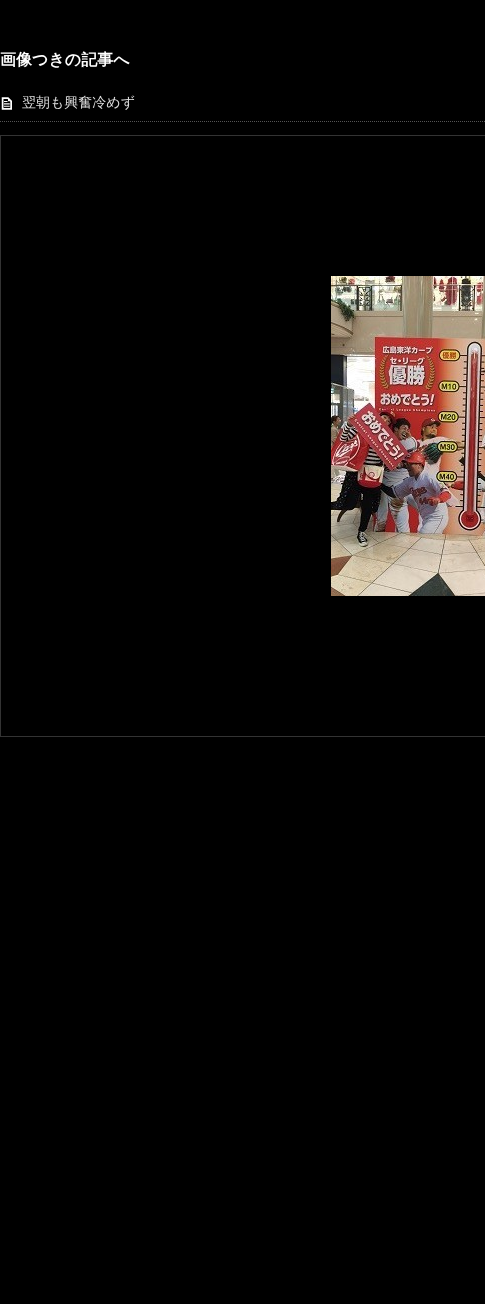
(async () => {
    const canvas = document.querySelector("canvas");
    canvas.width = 485;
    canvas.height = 1304;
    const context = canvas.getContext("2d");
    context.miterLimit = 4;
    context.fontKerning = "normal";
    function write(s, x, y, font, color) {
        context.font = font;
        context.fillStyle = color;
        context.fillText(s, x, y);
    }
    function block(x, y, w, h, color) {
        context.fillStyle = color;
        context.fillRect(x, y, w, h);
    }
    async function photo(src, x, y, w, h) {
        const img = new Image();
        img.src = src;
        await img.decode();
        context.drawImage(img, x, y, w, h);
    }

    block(0, 0, 485, 1304, "rgb(0, 0, 0)");
    write("画像つきの記事へ", 0, 65, "bold 16px WenQuanYi Zen Hei", "rgb(255, 255, 255)");
    await photo("media/1.png", 1, 97, 11, 13);
    context.beginPath();
    context.moveTo(0, 121.5);
    context.lineTo(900, 121.5);
    context.strokeStyle = "rgb(85, 85, 85)";
    context.setLineDash([1, 1]);
    context.stroke();
    write("翌朝も興奮冷めず", 22, 107, "500 14px WenQuanYi Zen Hei", "rgb(221, 221, 221)");
    context.strokeStyle = "rgb(51, 51, 51)";
    context.setLineDash([]);
    context.strokeRect(0.5, 135.5, 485, 601);
    await photo("media/2.png", 331, 276, 154, 320);
})();
